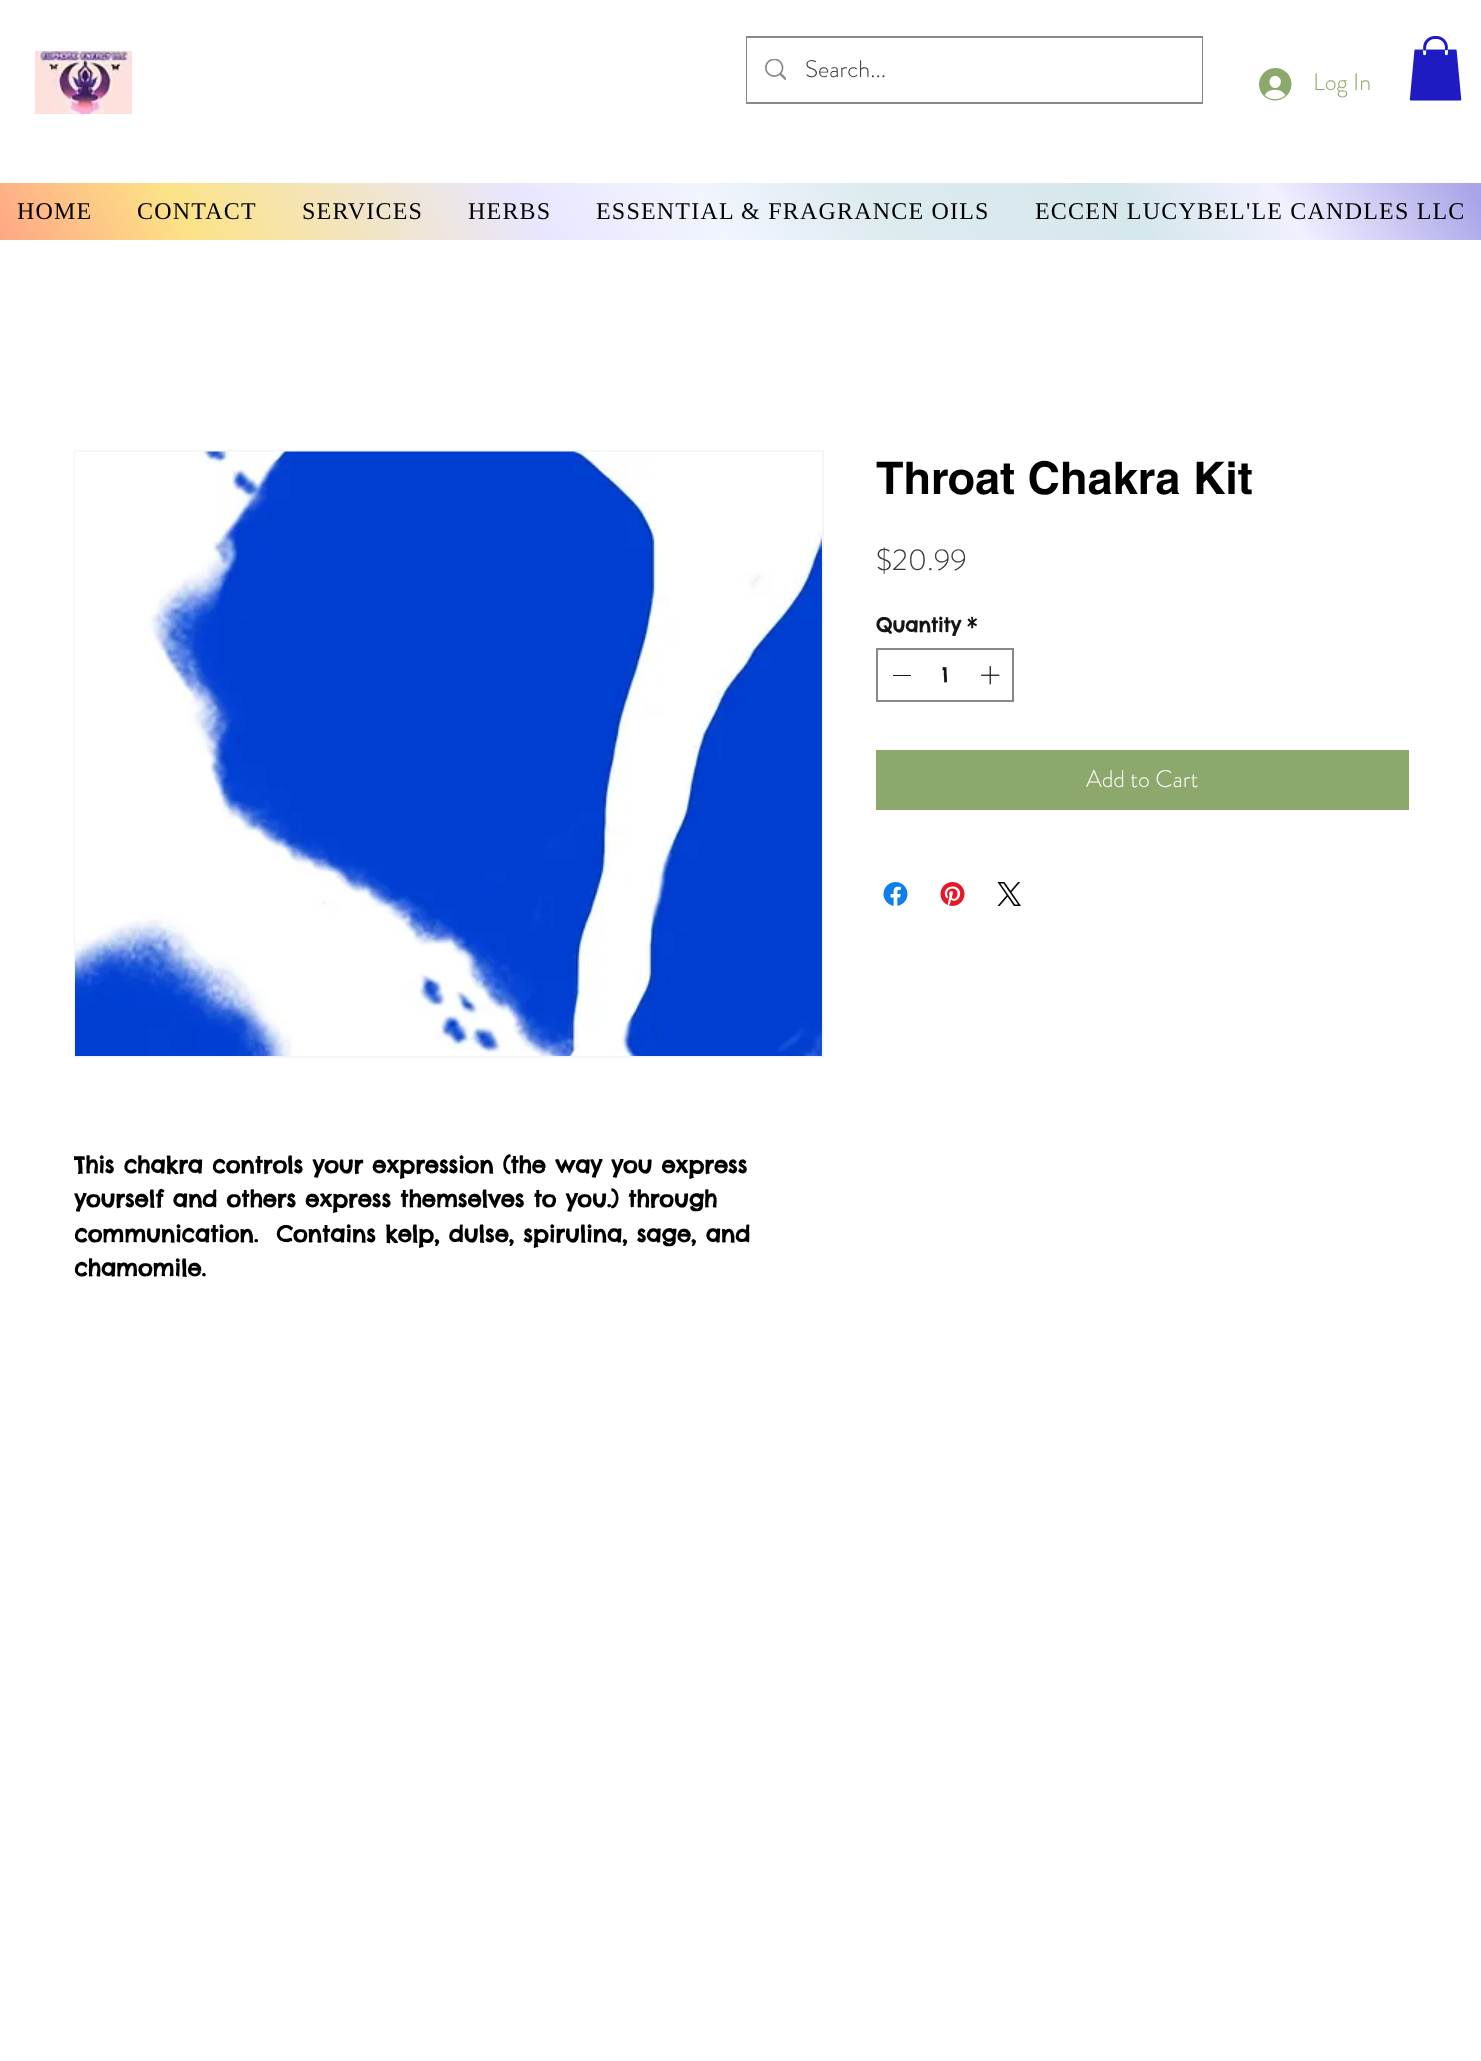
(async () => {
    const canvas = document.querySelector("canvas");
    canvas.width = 1481;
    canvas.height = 2061;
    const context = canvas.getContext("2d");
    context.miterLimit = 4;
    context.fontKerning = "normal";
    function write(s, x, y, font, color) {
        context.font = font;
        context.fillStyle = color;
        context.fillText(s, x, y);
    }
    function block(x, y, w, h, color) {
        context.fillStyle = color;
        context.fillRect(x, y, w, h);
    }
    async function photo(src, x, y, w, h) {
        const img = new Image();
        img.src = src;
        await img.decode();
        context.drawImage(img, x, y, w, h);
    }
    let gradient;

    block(0, 0, 1481, 2061, "rgb(255, 255, 255)");
    await photo("media/1.png", 34, 51, 98, 63);
    context.strokeStyle = "rgb(136, 136, 136)";
    context.lineWidth = 2;
    context.strokeRect(747, 37, 455, 66);
    block(747, 38, 455, 64, "rgb(255, 255, 255)");
    await photo("media/2.png", 765, 59, 21, 21);
    write("Search...", 805, 77, "300 24px 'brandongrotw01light'", "rgb(56, 56, 56)");
    await photo("media/3.png", 1409, 36, 53, 65);
    await photo("media/4.png", 1259, 68, 33, 33);
    write("Log In", 1313, 90, "300 24px 'brandongrotw01light'", "rgb(141, 168, 109)");
    gradient = context.createLinearGradient(195, 553, 1287, -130);
    gradient.addColorStop(0, "rgb(255, 166, 133)");
    gradient.addColorStop(0.13, "rgb(252, 227, 135)");
    gradient.addColorStop(0.36, "rgb(232, 230, 255)");
    gradient.addColorStop(0.48, "rgb(241, 245, 254)");
    gradient.addColorStop(0.59, "rgb(221, 235, 239)");
    gradient.addColorStop(0.76, "rgb(214, 231, 236)");
    gradient.addColorStop(0.86, "rgb(241, 240, 255)");
    gradient.addColorStop(0.99, "rgb(169, 165, 232)");
    context.fillStyle = gradient;
    context.fillRect(0, 183, 1481, 57);
    context.letterSpacing = "1.2px";
    write("HOME", 17, 219, "24px Liberation Serif", "rgb(0, 0, 0)");
    write("CONTACT", 137, 219, "24px Liberation Serif", "rgb(0, 0, 0)");
    write("SERVICES", 302, 219, "24px Liberation Serif", "rgb(0, 0, 0)");
    write("HERBS", 468, 219, "24px Liberation Serif", "rgb(0, 0, 0)");
    write("ESSENTIAL & FRAGRANCE OILS", 596, 219, "24px Liberation Serif", "rgb(0, 0, 0)");
    write("ECCEN LUCYBEL'LE CANDLES LLC", 1035, 219, "24px Liberation Serif", "rgb(0, 0, 0)");
    context.letterSpacing = "0px";
    write("Throat Chakra Kit", 876, 494, "bold 45px helvetica", "rgb(0, 0, 0)");
    write("$20.99", 876, 570, "300 30px 'brandongrotw01light'", "rgb(56, 56, 56)");
    write("Quantity", 876, 632, "bold 19.5px Chelsea Market", "rgb(20, 20, 20)");
    write("*", 967, 632, "bold 19.5px Chelsea Market", "rgb(20, 20, 20)");
    context.strokeRect(877, 649, 136, 52);
    block(893, 675, 18, 1, "rgb(20, 20, 20)");
    write("1", 942, 682, "bold 19.5px Chelsea Market", "rgb(20, 20, 20)");
    await photo("media/5.png", 981, 666, 19, 19);
    block(876, 750, 533, 60, "rgb(141, 168, 109)");
    write("Add to Cart", 1086, 787, "300 24px 'brandongrotw01light'", "rgb(255, 255, 255)");
    await photo("media/6.png", 883, 882, 25, 24);
    await photo("media/7.png", 940, 882, 25, 24);
    await photo("media/8.png", 997, 882, 24, 24);
    context.strokeStyle = "rgb(245, 245, 245)";
    context.strokeRect(75, 451, 748, 606);
    await photo("media/9.png", 75, 451, 747, 605);
    context.save();
    context.beginPath();
    context.rect(74, 1148, 750, 138);
    context.clip();
    write("This chakra controls your expression (the way you express", 74, 1173, "bold 22.5px Chelsea Market", "rgb(0, 0, 0)");
    context.restore();
    write("yourself and others express themselves to you.) through", 74, 1207, "bold 22.5px Chelsea Market", "rgb(0, 0, 0)");
    write("communication.  Contains kelp, dulse, spirulina, sage, and", 74, 1242, "bold 22.5px Chelsea Market", "rgb(0, 0, 0)");
    write("chamomile.", 74, 1276, "bold 22.5px Chelsea Market", "rgb(0, 0, 0)");
})();
